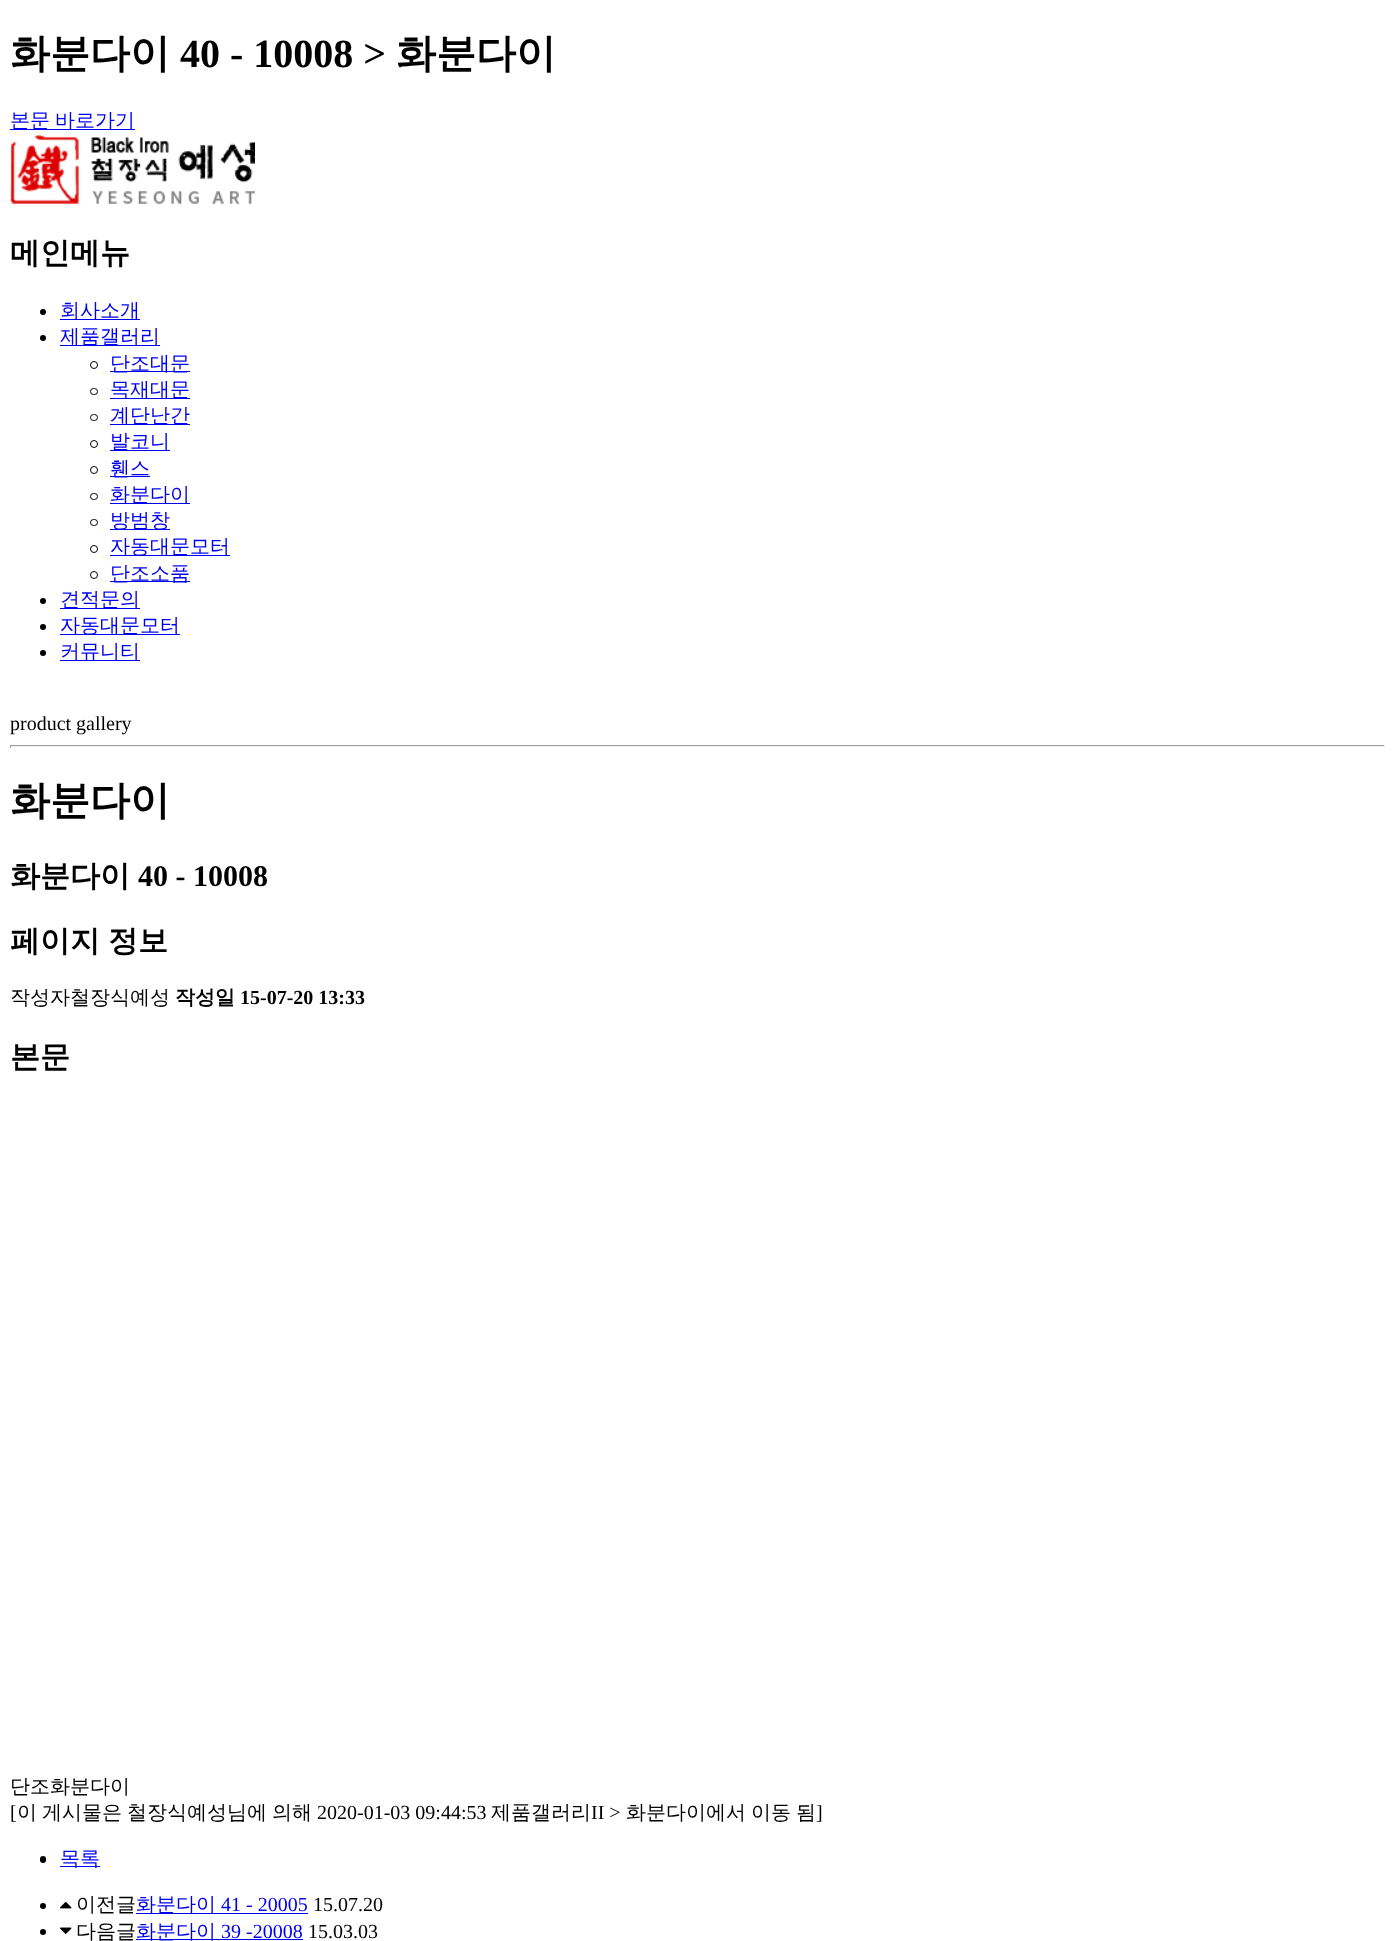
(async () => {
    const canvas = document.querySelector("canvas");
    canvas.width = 1395;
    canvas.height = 1941;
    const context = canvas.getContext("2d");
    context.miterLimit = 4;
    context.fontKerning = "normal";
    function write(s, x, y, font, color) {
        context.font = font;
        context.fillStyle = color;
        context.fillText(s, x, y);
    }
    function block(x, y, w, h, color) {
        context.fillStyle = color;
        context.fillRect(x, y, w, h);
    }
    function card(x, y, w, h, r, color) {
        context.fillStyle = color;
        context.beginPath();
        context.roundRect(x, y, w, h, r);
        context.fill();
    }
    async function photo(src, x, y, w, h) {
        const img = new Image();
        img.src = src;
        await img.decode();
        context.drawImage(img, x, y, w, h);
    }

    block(0, 0, 1395, 1941, "rgb(255, 255, 255)");
    write("화분다이", 10, 67, "bold 40px WenQuanYi Zen Hei", "rgb(0, 0, 0)");
    write("40 - 10008 >", 180, 67, "bold 40px Liberation Serif", "rgb(0, 0, 0)");
    write("화분다이", 396, 67, "bold 40px WenQuanYi Zen Hei", "rgb(0, 0, 0)");
    block(10, 129, 125, 1, "rgb(0, 0, 238)");
    context.wordSpacing = "-1px";
    write("본문 바로가기", 10, 127, "500 20px WenQuanYi Zen Hei", "rgb(0, 0, 238)");
    await photo("media/1.png", 10, 135, 245, 69);
    context.wordSpacing = "0px";
    write("메인메뉴", 10, 263, "bold 30px WenQuanYi Zen Hei", "rgb(0, 0, 0)");
    context.beginPath();
    context.arc(43, 312, 3, 0, Math.PI * 2);
    context.fill();
    block(60, 319, 80, 1, "rgb(0, 0, 238)");
    write("회사소개", 60, 317, "500 20px WenQuanYi Zen Hei", "rgb(0, 0, 238)");
    context.fillStyle = "rgb(0, 0, 0)";
    context.beginPath();
    context.arc(43, 338, 3, 0, Math.PI * 2);
    context.fill();
    block(60, 345, 100, 1, "rgb(0, 0, 238)");
    write("제품갤러리", 60, 343, "500 20px WenQuanYi Zen Hei", "rgb(0, 0, 238)");
    context.beginPath();
    context.arc(94, 365, 3.5, 0, Math.PI * 2);
    context.strokeStyle = "rgb(0, 0, 0)";
    context.stroke();
    block(110, 371, 80, 1, "rgb(0, 0, 238)");
    write("단조대문", 110, 370, "500 20px WenQuanYi Zen Hei", "rgb(0, 0, 238)");
    context.beginPath();
    context.roundRect(90.5, 388.5, 7, 6, 3);
    context.stroke();
    block(110, 398, 80, 1, "rgb(0, 0, 238)");
    write("목재대문", 110, 396, "500 20px WenQuanYi Zen Hei", "rgb(0, 0, 238)");
    context.beginPath();
    context.roundRect(90.5, 414.5, 7, 6, 3);
    context.stroke();
    block(110, 424, 80, 1, "rgb(0, 0, 238)");
    write("계단난간", 110, 422, "500 20px WenQuanYi Zen Hei", "rgb(0, 0, 238)");
    context.beginPath();
    context.arc(94, 444, 3.5, 0, Math.PI * 2);
    context.stroke();
    block(110, 450, 60, 1, "rgb(0, 0, 238)");
    write("발코니", 110, 448, "500 20px WenQuanYi Zen Hei", "rgb(0, 0, 238)");
    context.beginPath();
    context.arc(94, 470, 3.5, 0, Math.PI * 2);
    context.stroke();
    block(110, 476, 40, 1, "rgb(0, 0, 238)");
    write("휀스", 110, 475, "500 20px WenQuanYi Zen Hei", "rgb(0, 0, 238)");
    context.beginPath();
    context.roundRect(90.5, 493.5, 7, 6, 3);
    context.stroke();
    block(110, 503, 80, 1, "rgb(0, 0, 238)");
    write("화분다이", 110, 501, "500 20px WenQuanYi Zen Hei", "rgb(0, 0, 238)");
    context.beginPath();
    context.roundRect(90.5, 519.5, 7, 6, 3);
    context.stroke();
    block(110, 529, 60, 1, "rgb(0, 0, 238)");
    write("방범창", 110, 527, "500 20px WenQuanYi Zen Hei", "rgb(0, 0, 238)");
    context.beginPath();
    context.arc(94, 549, 3.5, 0, Math.PI * 2);
    context.stroke();
    block(110, 555, 120, 1, "rgb(0, 0, 238)");
    write("자동대문모터", 110, 553, "500 20px WenQuanYi Zen Hei", "rgb(0, 0, 238)");
    context.beginPath();
    context.arc(94, 575, 3.5, 0, Math.PI * 2);
    context.stroke();
    block(110, 581, 80, 1, "rgb(0, 0, 238)");
    write("단조소품", 110, 580, "500 20px WenQuanYi Zen Hei", "rgb(0, 0, 238)");
    context.fillStyle = "rgb(0, 0, 0)";
    context.beginPath();
    context.arc(43, 601, 3, 0, Math.PI * 2);
    context.fill();
    block(60, 608, 80, 1, "rgb(0, 0, 238)");
    write("견적문의", 60, 606, "500 20px WenQuanYi Zen Hei", "rgb(0, 0, 238)");
    context.fillStyle = "rgb(0, 0, 0)";
    context.beginPath();
    context.arc(43, 627, 3, 0, Math.PI * 2);
    context.fill();
    block(60, 634, 120, 1, "rgb(0, 0, 238)");
    write("자동대문모터", 60, 632, "500 20px WenQuanYi Zen Hei", "rgb(0, 0, 238)");
    context.fillStyle = "rgb(0, 0, 0)";
    context.beginPath();
    context.arc(43, 653, 3, 0, Math.PI * 2);
    context.fill();
    block(60, 660, 80, 1, "rgb(0, 0, 238)");
    write("커뮤니티", 60, 658, "500 20px WenQuanYi Zen Hei", "rgb(0, 0, 238)");
    write("product gallery", 10, 730, "20px Liberation Serif", "rgb(0, 0, 0)");
    block(10, 745, 1375, 1, "rgb(159, 159, 159)");
    block(1384, 745, 1, 3, "rgb(238, 238, 238)");
    block(10, 746, 1375, 1, "rgb(238, 238, 238)");
    block(10, 745, 1, 3, "rgb(159, 159, 159)");
    write("화분다이", 10, 814, "bold 40px WenQuanYi Zen Hei", "rgb(0, 0, 0)");
    write("화분다이", 10, 886, "bold 30px WenQuanYi Zen Hei", "rgb(0, 0, 0)");
    write("40 - 10008", 138, 886, "bold 30px Liberation Serif", "rgb(0, 0, 0)");
    context.wordSpacing = "-1px";
    write("페이지 정보", 10, 951, "bold 30px WenQuanYi Zen Hei", "rgb(0, 0, 0)");
    context.wordSpacing = "0px";
    write("작성자철장식예성", 10, 1004, "500 20px WenQuanYi Zen Hei", "rgb(0, 0, 0)");
    write("작성일", 175, 1004, "bold 20px WenQuanYi Zen Hei", "rgb(0, 0, 0)");
    write("15-07-20 13:33", 240, 1004, "bold 20px Liberation Serif", "rgb(0, 0, 0)");
    write("본문", 10, 1067, "bold 30px WenQuanYi Zen Hei", "rgb(0, 0, 0)");
    write("단조화분다이", 10, 1793, "500 20px WenQuanYi Zen Hei", "rgb(0, 0, 0)");
    write("[", 10, 1819, "20px Liberation Serif", "rgb(0, 0, 0)");
    write("이", 17, 1819, "500 20px WenQuanYi Zen Hei", "rgb(0, 0, 0)");
    write("게시물은", 42, 1819, "500 20px WenQuanYi Zen Hei", "rgb(0, 0, 0)");
    write("철장식예성님에", 127, 1819, "500 20px WenQuanYi Zen Hei", "rgb(0, 0, 0)");
    write("의해", 272, 1819, "500 20px WenQuanYi Zen Hei", "rgb(0, 0, 0)");
    write("2020-01-03 09:44:53", 317, 1819, "20px Liberation Serif", "rgb(0, 0, 0)");
    write("제품갤러리", 491, 1819, "500 20px WenQuanYi Zen Hei", "rgb(0, 0, 0)");
    write("II >", 591, 1819, "20px Liberation Serif", "rgb(0, 0, 0)");
    write("화분다이에서", 626, 1819, "500 20px WenQuanYi Zen Hei", "rgb(0, 0, 0)");
    write("이동", 751, 1819, "500 20px WenQuanYi Zen Hei", "rgb(0, 0, 0)");
    write("됨", 796, 1819, "500 20px WenQuanYi Zen Hei", "rgb(0, 0, 0)");
    write("]", 816, 1819, "20px Liberation Serif", "rgb(0, 0, 0)");
    card(40, 1856, 6, 7, 3, "rgb(0, 0, 0)");
    block(60, 1866, 40, 1, "rgb(0, 0, 238)");
    write("목록", 60, 1865, "500 20px WenQuanYi Zen Hei", "rgb(0, 0, 238)");
    context.fillStyle = "rgb(0, 0, 0)";
    context.beginPath();
    context.arc(43, 1906, 3, 0, Math.PI * 2);
    context.fill();
    await photo("media/2.png", 60, 1902, 12, 7);
    write("이전글", 76, 1911, "500 20px WenQuanYi Zen Hei", "rgb(0, 0, 0)");
    block(136, 1913, 172, 1, "rgb(0, 0, 238)");
    write("화분다이", 136, 1911, "500 20px WenQuanYi Zen Hei", "rgb(0, 0, 238)");
    write("41 - 20005", 221, 1911, "20px Liberation Serif", "rgb(0, 0, 238)");
    write("15.07.20", 313, 1911, "20px Liberation Serif", "rgb(0, 0, 0)");
    context.beginPath();
    context.arc(43, 1932, 3, 0, Math.PI * 2);
    context.fill();
    await photo("media/3.png", 60, 1927, 12, 7);
    write("다음글", 76, 1938, "500 20px WenQuanYi Zen Hei", "rgb(0, 0, 0)");
    block(136, 1939, 167, 1, "rgb(0, 0, 238)");
    write("화분다이", 136, 1938, "500 20px WenQuanYi Zen Hei", "rgb(0, 0, 238)");
    write("39 -20008", 221, 1938, "20px Liberation Serif", "rgb(0, 0, 238)");
    write("15.03.03", 308, 1938, "20px Liberation Serif", "rgb(0, 0, 0)");
})();
